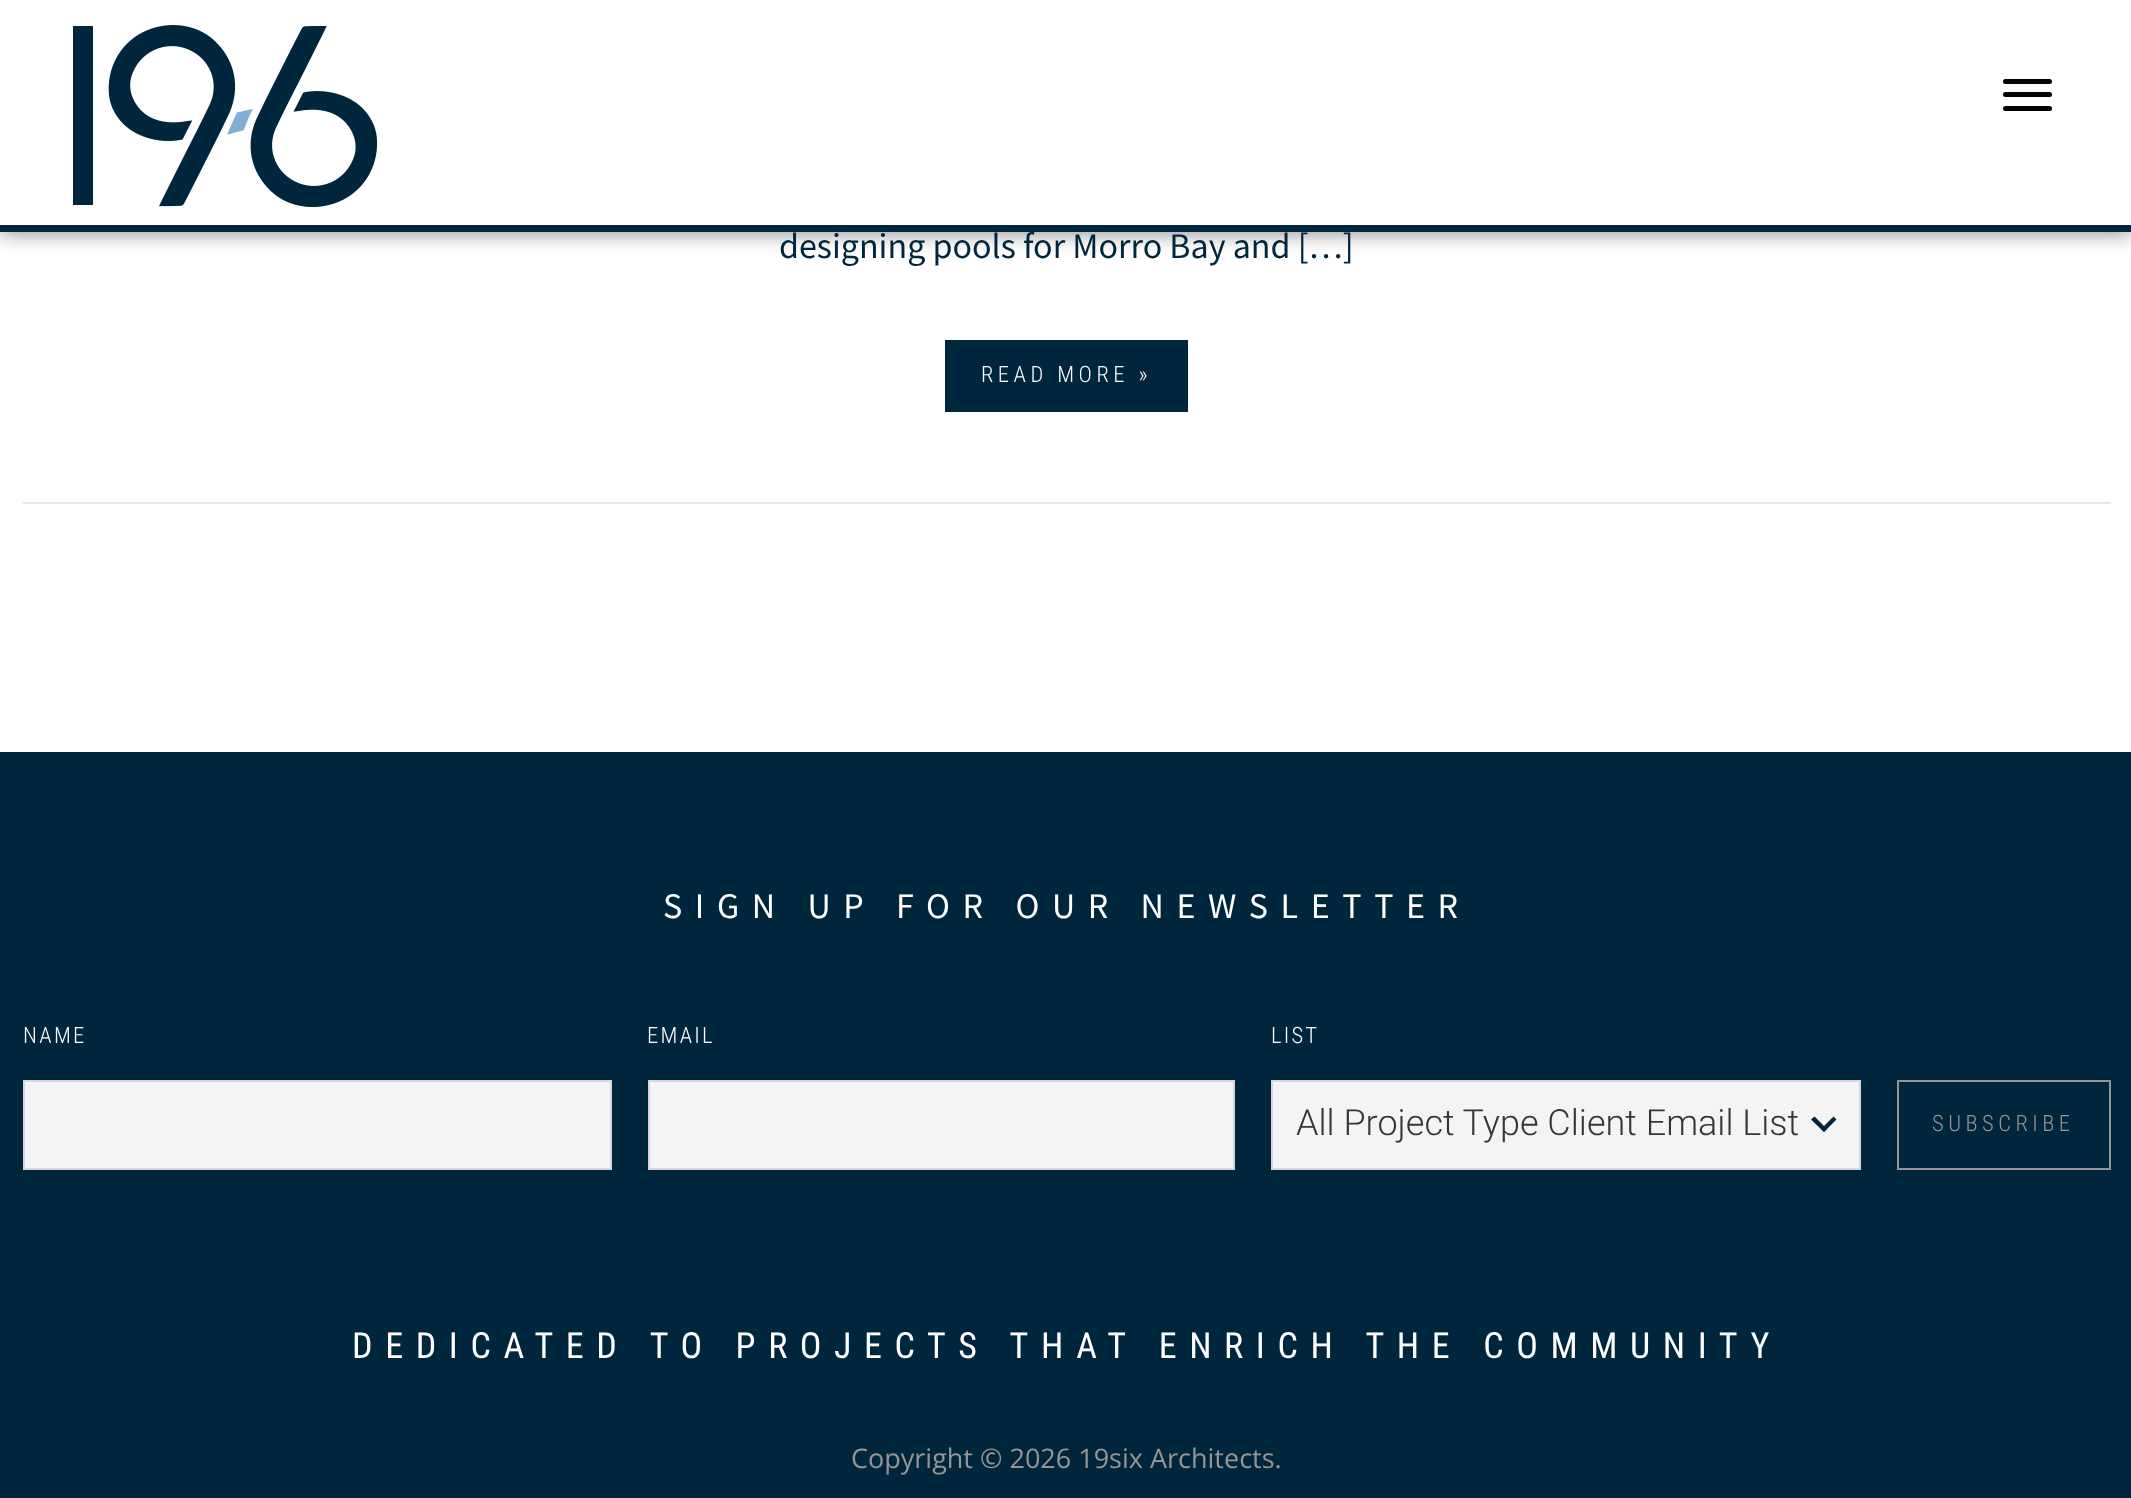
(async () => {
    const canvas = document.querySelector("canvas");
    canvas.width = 2131;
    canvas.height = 1498;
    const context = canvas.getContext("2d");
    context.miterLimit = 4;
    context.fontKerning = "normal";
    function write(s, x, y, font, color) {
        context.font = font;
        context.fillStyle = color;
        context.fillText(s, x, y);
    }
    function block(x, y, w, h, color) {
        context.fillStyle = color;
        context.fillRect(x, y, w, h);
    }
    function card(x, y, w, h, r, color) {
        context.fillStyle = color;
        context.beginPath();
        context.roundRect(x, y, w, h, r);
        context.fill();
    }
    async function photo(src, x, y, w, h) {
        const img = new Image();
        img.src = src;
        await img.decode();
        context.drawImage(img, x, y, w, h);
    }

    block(0, 0, 2131, 1498, "rgb(255, 255, 255)");
    context.fillStyle = "rgba(0, 0, 0, 0.5)";
    context.filter = "blur(11px)";
    context.beginPath();
    context.rect(0, 0, 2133, 232);
    context.fill();
    context.filter = "none";
    block(0, 0, 2131, 225, "rgb(255, 255, 255)");
    write("designing pools for Morro Bay and […]", 779, 258, "36px Source Sans Pro", "rgb(0, 38, 61)");
    block(0, 225, 2131, 7, "rgb(0, 38, 62)");
    await photo("media/1.png", 73, 25, 305, 182);
    card(2003, 79, 49, 5, 2.5, "rgb(2, 2, 6)");
    card(2003, 92, 49, 5, 2.5, "rgb(2, 2, 6)");
    card(2003, 106, 49, 5, 2.5, "rgb(2, 2, 6)");
    block(945, 340, 243, 72, "rgb(0, 38, 61)");
    context.letterSpacing = "4.5px";
    write("READ MORE »", 981, 382, "300 22.5px Roboto Condensed", "rgb(255, 255, 255)");
    block(23, 502, 2088, 2, "rgb(230, 230, 230)");
    block(0, 752, 2131, 746, "rgb(0, 38, 61)");
    context.letterSpacing = "12.6px";
    write("SIGN UP FOR OUR NEWSLETTER", 663, 918, "36px Source Sans Pro", "rgb(255, 255, 255)");
    context.letterSpacing = "2.25px";
    write("NAME", 23, 1043, "300 22.5px Roboto Condensed", "rgb(255, 255, 255)");
    context.fillStyle = "rgb(244, 244, 244)";
    context.beginPath();
    context.rect(24, 1081, 587, 88);
    context.fill();
    context.strokeStyle = "rgb(215, 215, 215)";
    context.lineWidth = 2;
    context.stroke();
    write("EMAIL", 647, 1043, "300 22.5px Roboto Condensed", "rgb(255, 255, 255)");
    context.fillStyle = "rgb(244, 244, 244)";
    context.beginPath();
    context.rect(649, 1081, 585, 88);
    context.fill();
    context.stroke();
    write("LIST", 1271, 1043, "300 22.5px Roboto Condensed", "rgb(255, 255, 255)");
    context.fillStyle = "rgb(244, 244, 244)";
    context.beginPath();
    context.rect(1272, 1081, 588, 88);
    context.fill();
    context.stroke();
    context.letterSpacing = "0px";
    write("All Project Type Client Email List", 1296, 1135, "300 36px Roboto", "rgb(54, 54, 54)");
    context.fillStyle = "rgb(0, 38, 62)";
    context.beginPath();
    context.moveTo(1833.5, 1116.5);
    context.lineTo(1836.5, 1119.5);
    context.lineTo(1824, 1132);
    context.lineTo(1821, 1129);
    context.closePath();
    context.fill();
    context.beginPath();
    context.moveTo(1814.5, 1116.5);
    context.lineTo(1827, 1129);
    context.lineTo(1824, 1132);
    context.lineTo(1811, 1119.5);
    context.closePath();
    context.fill();
    context.strokeStyle = "rgb(149, 149, 149)";
    context.strokeRect(1898, 1081, 212, 88);
    context.letterSpacing = "4.5px";
    write("SUBSCRIBE", 1932, 1131, "300 22.5px Roboto Condensed", "rgb(149, 149, 149)");
    context.letterSpacing = "12.6px";
    write("DEDICATED TO PROJECTS THAT ENRICH THE COMMUNITY", 352, 1358, "36px Roboto Condensed", "rgb(255, 255, 255)");
    context.letterSpacing = "0px";
    write("Copyright © 2026 19six Architects.", 851, 1468, "27px Open Sans", "rgb(149, 149, 149)");
})();
